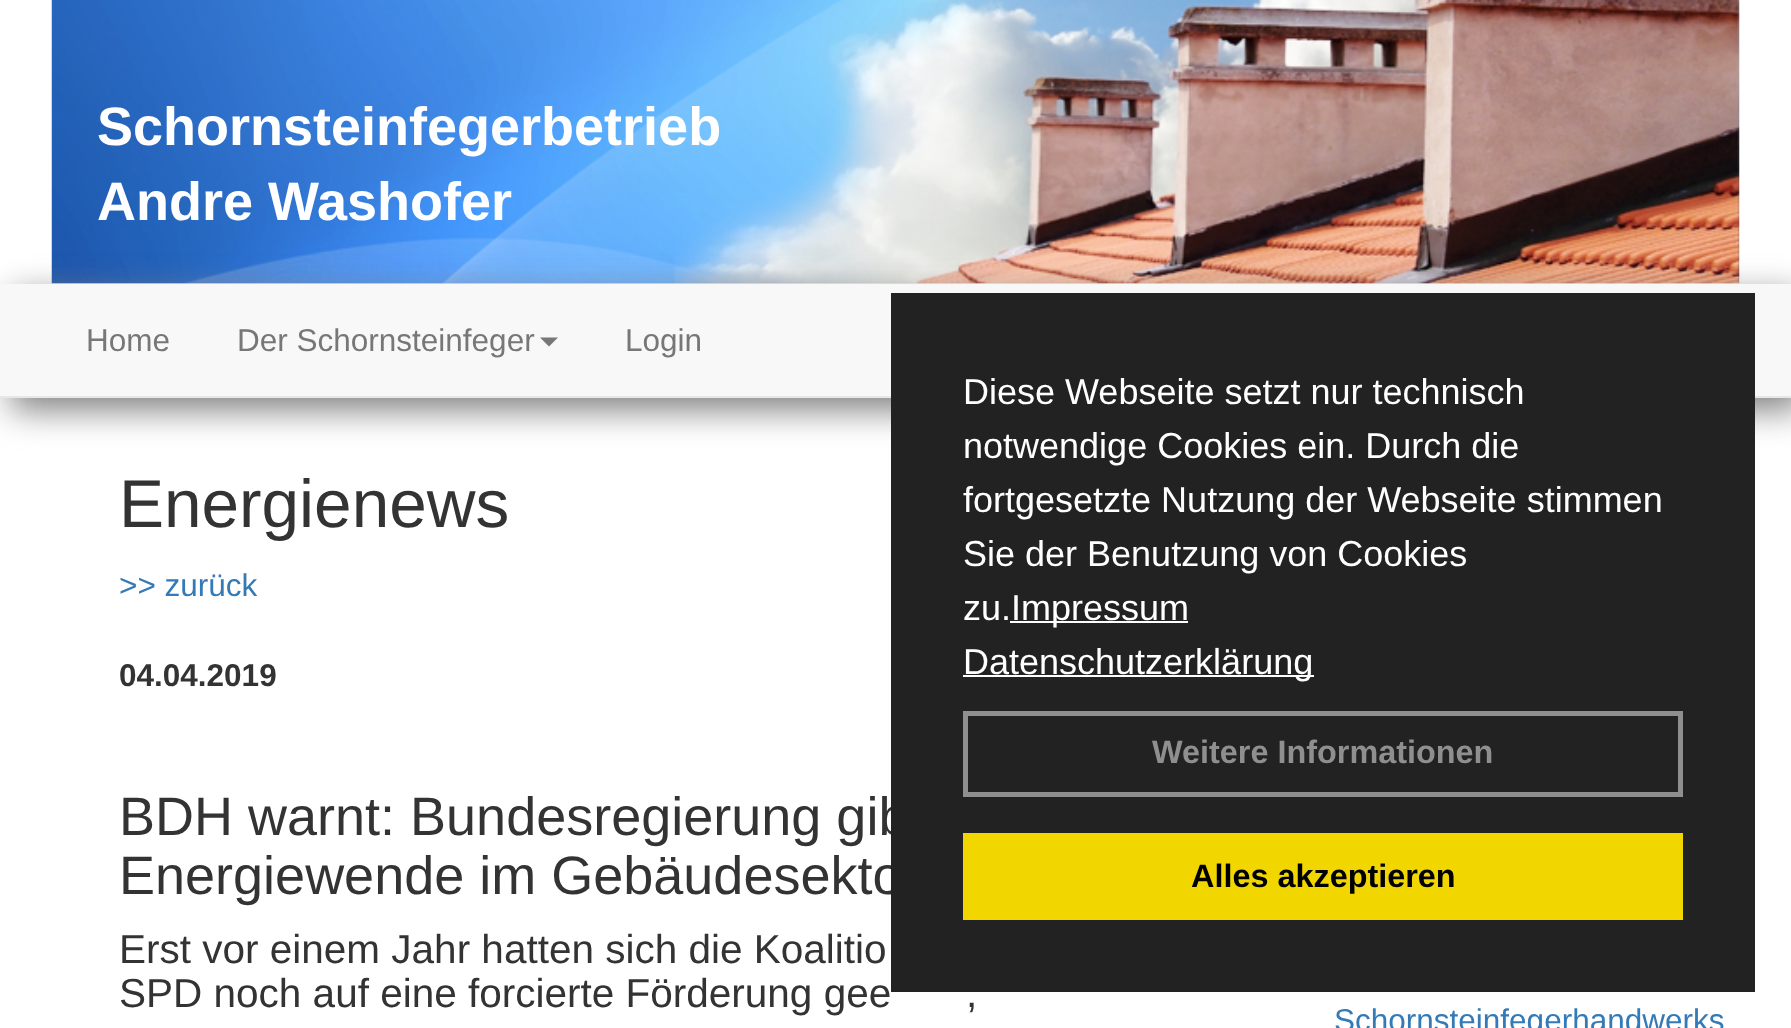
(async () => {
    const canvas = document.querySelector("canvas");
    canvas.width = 1791;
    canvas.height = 1028;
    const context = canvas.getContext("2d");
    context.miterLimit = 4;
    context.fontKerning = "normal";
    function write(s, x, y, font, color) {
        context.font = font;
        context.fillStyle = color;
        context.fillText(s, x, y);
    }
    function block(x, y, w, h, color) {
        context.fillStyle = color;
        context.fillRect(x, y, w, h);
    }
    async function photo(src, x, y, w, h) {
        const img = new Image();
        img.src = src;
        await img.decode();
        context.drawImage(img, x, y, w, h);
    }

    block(0, 0, 1791, 1028, "rgb(255, 255, 255)");
    await photo("media/1.png", 51, 0, 1689, 284);
    write("Schornsteinfegerbetrieb", 97, 145, "bold 54px Liberation Sans", "rgb(255, 255, 255)");
    write("Andre Washofer", 97, 220, "bold 54px Liberation Sans", "rgb(255, 255, 255)");
    context.fillStyle = "rgb(128, 128, 128)";
    context.filter = "blur(17px)";
    context.beginPath();
    context.rect(11, 295, 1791, 115);
    context.fill();
    context.filter = "none";
    block(0, 284, 1791, 112, "rgb(248, 248, 248)");
    block(0, 396, 1791, 2, "rgb(231, 231, 231)");
    write("Home", 86, 351, "31.5px Liberation Sans", "rgb(119, 119, 119)");
    write("Der Schornsteinfeger", 237, 351, "31.5px Liberation Sans", "rgb(119, 119, 119)");
    context.beginPath();
    context.moveTo(540, 337.5);
    context.lineTo(558, 337.5);
    context.lineTo(549, 346.5);
    context.closePath();
    context.fill();
    write("Login", 625, 351, "31.5px Liberation Sans", "rgb(119, 119, 119)");
    write("Energienews", 119, 527, "67.5px Liberation Sans", "rgb(51, 51, 51)");
    write(">> zurück", 119, 596, "31.5px Liberation Sans", "rgb(51, 122, 183)");
    write("04.04.2019", 119, 686, "bold 31.5px Liberation Sans", "rgb(51, 51, 51)");
    write("BDH warnt: Bundesregierung gib", 119, 835, "54px Liberation Sans", "rgb(51, 51, 51)");
    write("Energiewende im Gebäudesekto", 119, 894, "54px Liberation Sans", "rgb(51, 51, 51)");
    write("Erst vor einem Jahr hatten sich die Koalitio", 119, 963, "40.5px Liberation Sans", "rgb(51, 51, 51)");
    write("SPD noch auf eine forcierte Förderung gee", 119, 1007, "40.5px Liberation Sans", "rgb(51, 51, 51)");
    write(",", 966, 1007, "40.5px Liberation Sans", "rgb(51, 51, 51)");
    write("Schornsteinfegerhandwerks", 1334, 1031, "31.5px Liberation Sans", "rgb(51, 122, 183)");
    block(891, 293, 864, 699, "rgb(34, 34, 34)");
    write("Diese Webseite setzt nur technisch", 963, 404, "36px Liberation Sans", "rgb(255, 255, 255)");
    write("notwendige Cookies ein. Durch die", 963, 458, "36px Liberation Sans", "rgb(255, 255, 255)");
    write("fortgesetzte Nutzung der Webseite stimmen", 963, 512, "36px Liberation Sans", "rgb(255, 255, 255)");
    write("Sie der Benutzung von Cookies", 963, 566, "36px Liberation Sans", "rgb(255, 255, 255)");
    write("zu.", 963, 620, "36px Liberation Sans", "rgb(255, 255, 255)");
    block(1010, 621, 178, 2, "rgb(255, 255, 255)");
    write("Impressum", 1011, 620, "36px Liberation Sans", "rgb(255, 255, 255)");
    block(963, 675, 351, 2, "rgb(255, 255, 255)");
    write("Datenschutzerklärung", 963, 674, "36px Liberation Sans", "rgb(255, 255, 255)");
    context.strokeStyle = "rgb(143, 143, 143)";
    context.lineWidth = 5;
    context.strokeRect(965.5, 713.5, 715, 81);
    write("Weitere Informationen", 1152, 763, "bold 32.4px Liberation Sans", "rgb(143, 143, 143)");
    block(963, 833, 720, 87, "rgb(241, 214, 0)");
    write("Alles akzeptieren", 1191, 887, "bold 32.4px Liberation Sans", "rgb(0, 0, 0)");
})();
